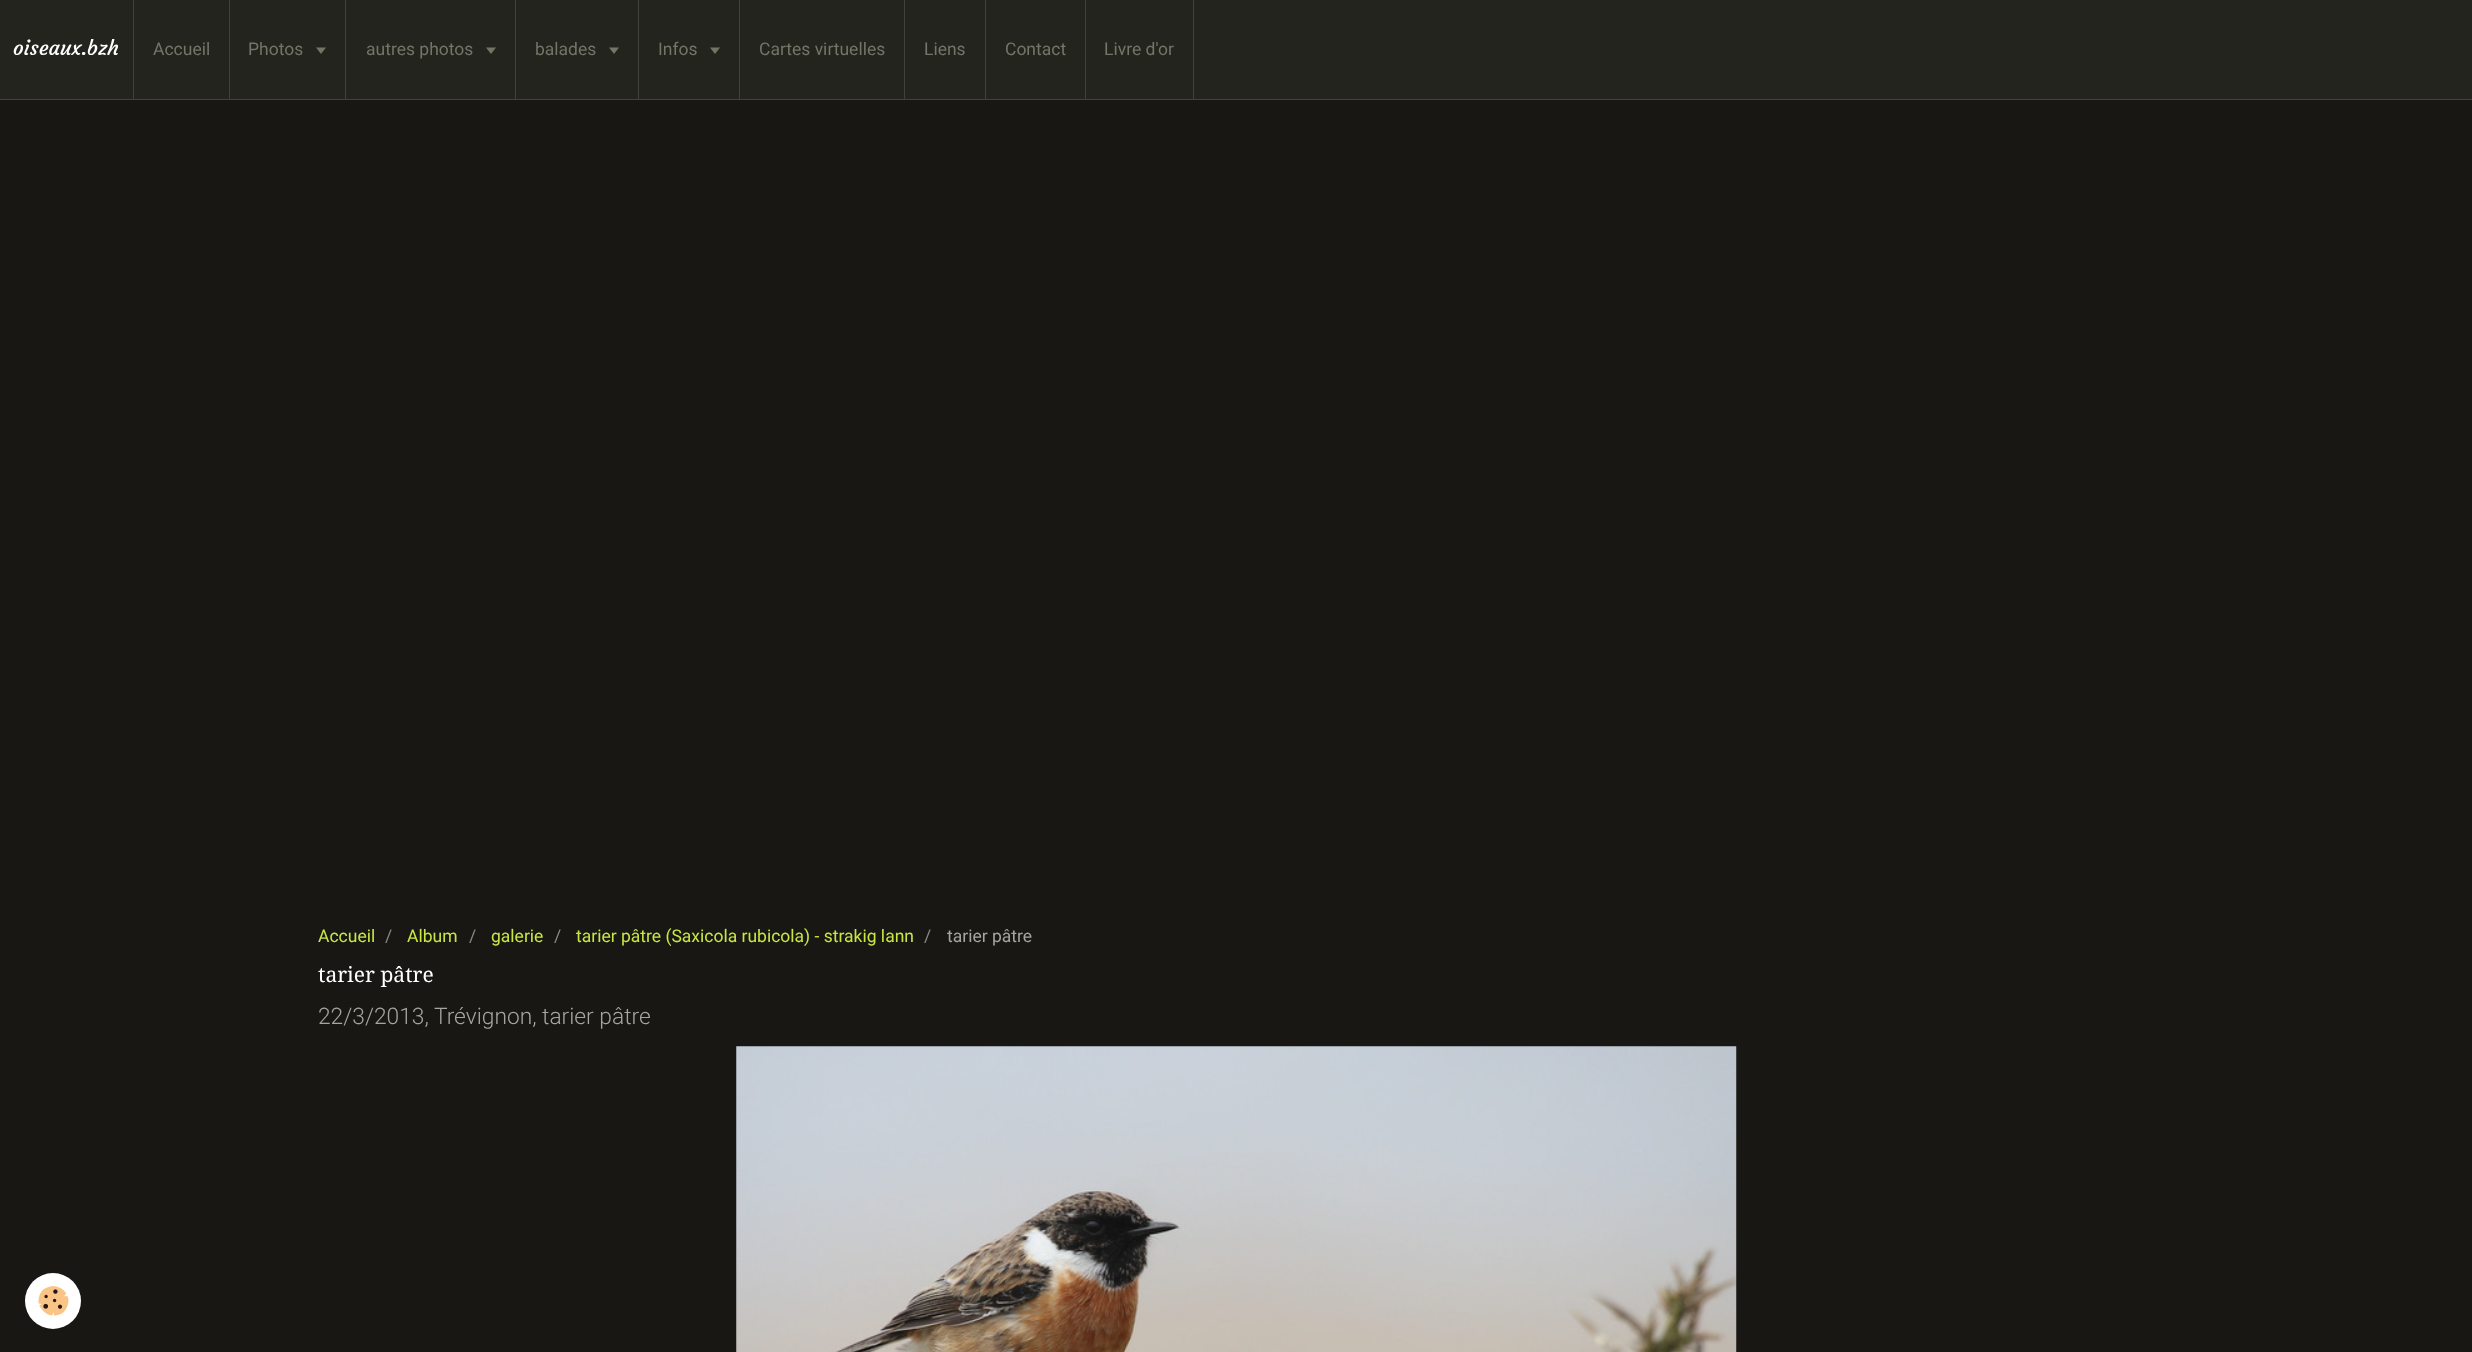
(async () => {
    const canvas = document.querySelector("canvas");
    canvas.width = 2472;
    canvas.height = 1352;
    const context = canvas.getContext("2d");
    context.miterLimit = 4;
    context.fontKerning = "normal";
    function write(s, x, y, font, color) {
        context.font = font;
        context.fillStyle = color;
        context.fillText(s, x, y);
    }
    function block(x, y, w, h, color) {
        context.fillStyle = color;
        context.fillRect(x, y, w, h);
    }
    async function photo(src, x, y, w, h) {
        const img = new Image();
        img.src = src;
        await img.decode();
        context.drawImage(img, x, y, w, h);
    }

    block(0, 0, 2472, 1352, "rgb(24, 23, 20)");
    block(0, 0, 2472, 99, "rgb(36, 36, 31)");
    block(0, 99, 2472, 1, "rgb(65, 65, 61)");
    context.save();
    context.beginPath();
    context.rect(13, 39, 106, 21);
    context.clip();
    write("oiseaux.bzh", 13, 55, "21px Courgette", "rgb(255, 255, 255)");
    context.restore();
    block(229, 0, 1, 99, "rgb(65, 65, 61)");
    block(133, 0, 1, 99, "rgb(65, 65, 61)");
    write("Accueil", 153, 55, "17.5px Roboto", "rgb(113, 118, 103)");
    block(345, 0, 1, 99, "rgb(65, 65, 61)");
    write("Photos", 248, 55, "17.5px Roboto", "rgb(113, 118, 103)");
    context.beginPath();
    context.moveTo(316, 47.5);
    context.lineTo(326, 47.5);
    context.lineTo(321, 54);
    context.closePath();
    context.fill();
    block(515, 0, 1, 99, "rgb(65, 65, 61)");
    write("autres photos", 366, 55, "17.5px Roboto", "rgb(113, 118, 103)");
    context.beginPath();
    context.moveTo(486, 47.5);
    context.lineTo(496, 47.5);
    context.lineTo(491, 54);
    context.closePath();
    context.fill();
    block(638, 0, 1, 99, "rgb(65, 65, 61)");
    write("balades", 535, 55, "17.5px Roboto", "rgb(113, 118, 103)");
    context.beginPath();
    context.moveTo(609, 47.5);
    context.lineTo(619, 47.5);
    context.lineTo(614, 54);
    context.closePath();
    context.fill();
    block(739, 0, 1, 99, "rgb(65, 65, 61)");
    write("Infos", 658, 55, "17.5px Roboto", "rgb(113, 118, 103)");
    context.beginPath();
    context.moveTo(710, 47.5);
    context.lineTo(720, 47.5);
    context.lineTo(715, 54);
    context.closePath();
    context.fill();
    block(904, 0, 1, 99, "rgb(65, 65, 61)");
    write("Cartes virtuelles", 759, 55, "17.5px Roboto", "rgb(113, 118, 103)");
    block(985, 0, 1, 99, "rgb(65, 65, 61)");
    write("Liens", 924, 55, "17.5px Roboto", "rgb(113, 118, 103)");
    block(1085, 0, 1, 99, "rgb(65, 65, 61)");
    write("Contact", 1005, 55, "17.5px Roboto", "rgb(113, 118, 103)");
    block(1193, 0, 1, 99, "rgb(65, 65, 61)");
    write("Livre d'or", 1104, 55, "17.5px Roboto", "rgb(113, 118, 103)");
    write("Accueil", 318, 942, "17.5px Roboto", "rgb(199, 231, 68)");
    write("/", 385, 942, "17.5px Roboto", "rgb(136, 138, 130)");
    write("Album", 407, 942, "17.5px Roboto", "rgb(199, 231, 68)");
    write("/", 469, 942, "17.5px Roboto", "rgb(136, 138, 130)");
    write("galerie", 491, 942, "17.5px Roboto", "rgb(199, 231, 68)");
    write("/", 554, 942, "17.5px Roboto", "rgb(136, 138, 130)");
    write("tarier pâtre (Saxicola rubicola) - strakig lann", 576, 942, "17.5px Roboto", "rgb(199, 231, 68)");
    write("/", 924, 942, "17.5px Roboto", "rgb(136, 138, 130)");
    write("tarier pâtre", 947, 942, "17.5px Roboto", "rgb(164, 167, 157)");
    write("tarier pâtre", 318, 982, "21px Droid Serif", "rgb(255, 255, 255)");
    write("22/3/2013, Trévignon, tarier pâtre", 318, 1024, "300 22.75px Roboto", "rgb(164, 167, 157)");
    await photo("media/1.png", 736, 1046, 1001, 306);
    context.fillStyle = "rgb(255, 255, 255)";
    context.beginPath();
    context.arc(53, 1301, 28, 0, Math.PI * 2);
    context.fill();
    await photo("media/2.png", 38, 1286, 31, 30);
})();
